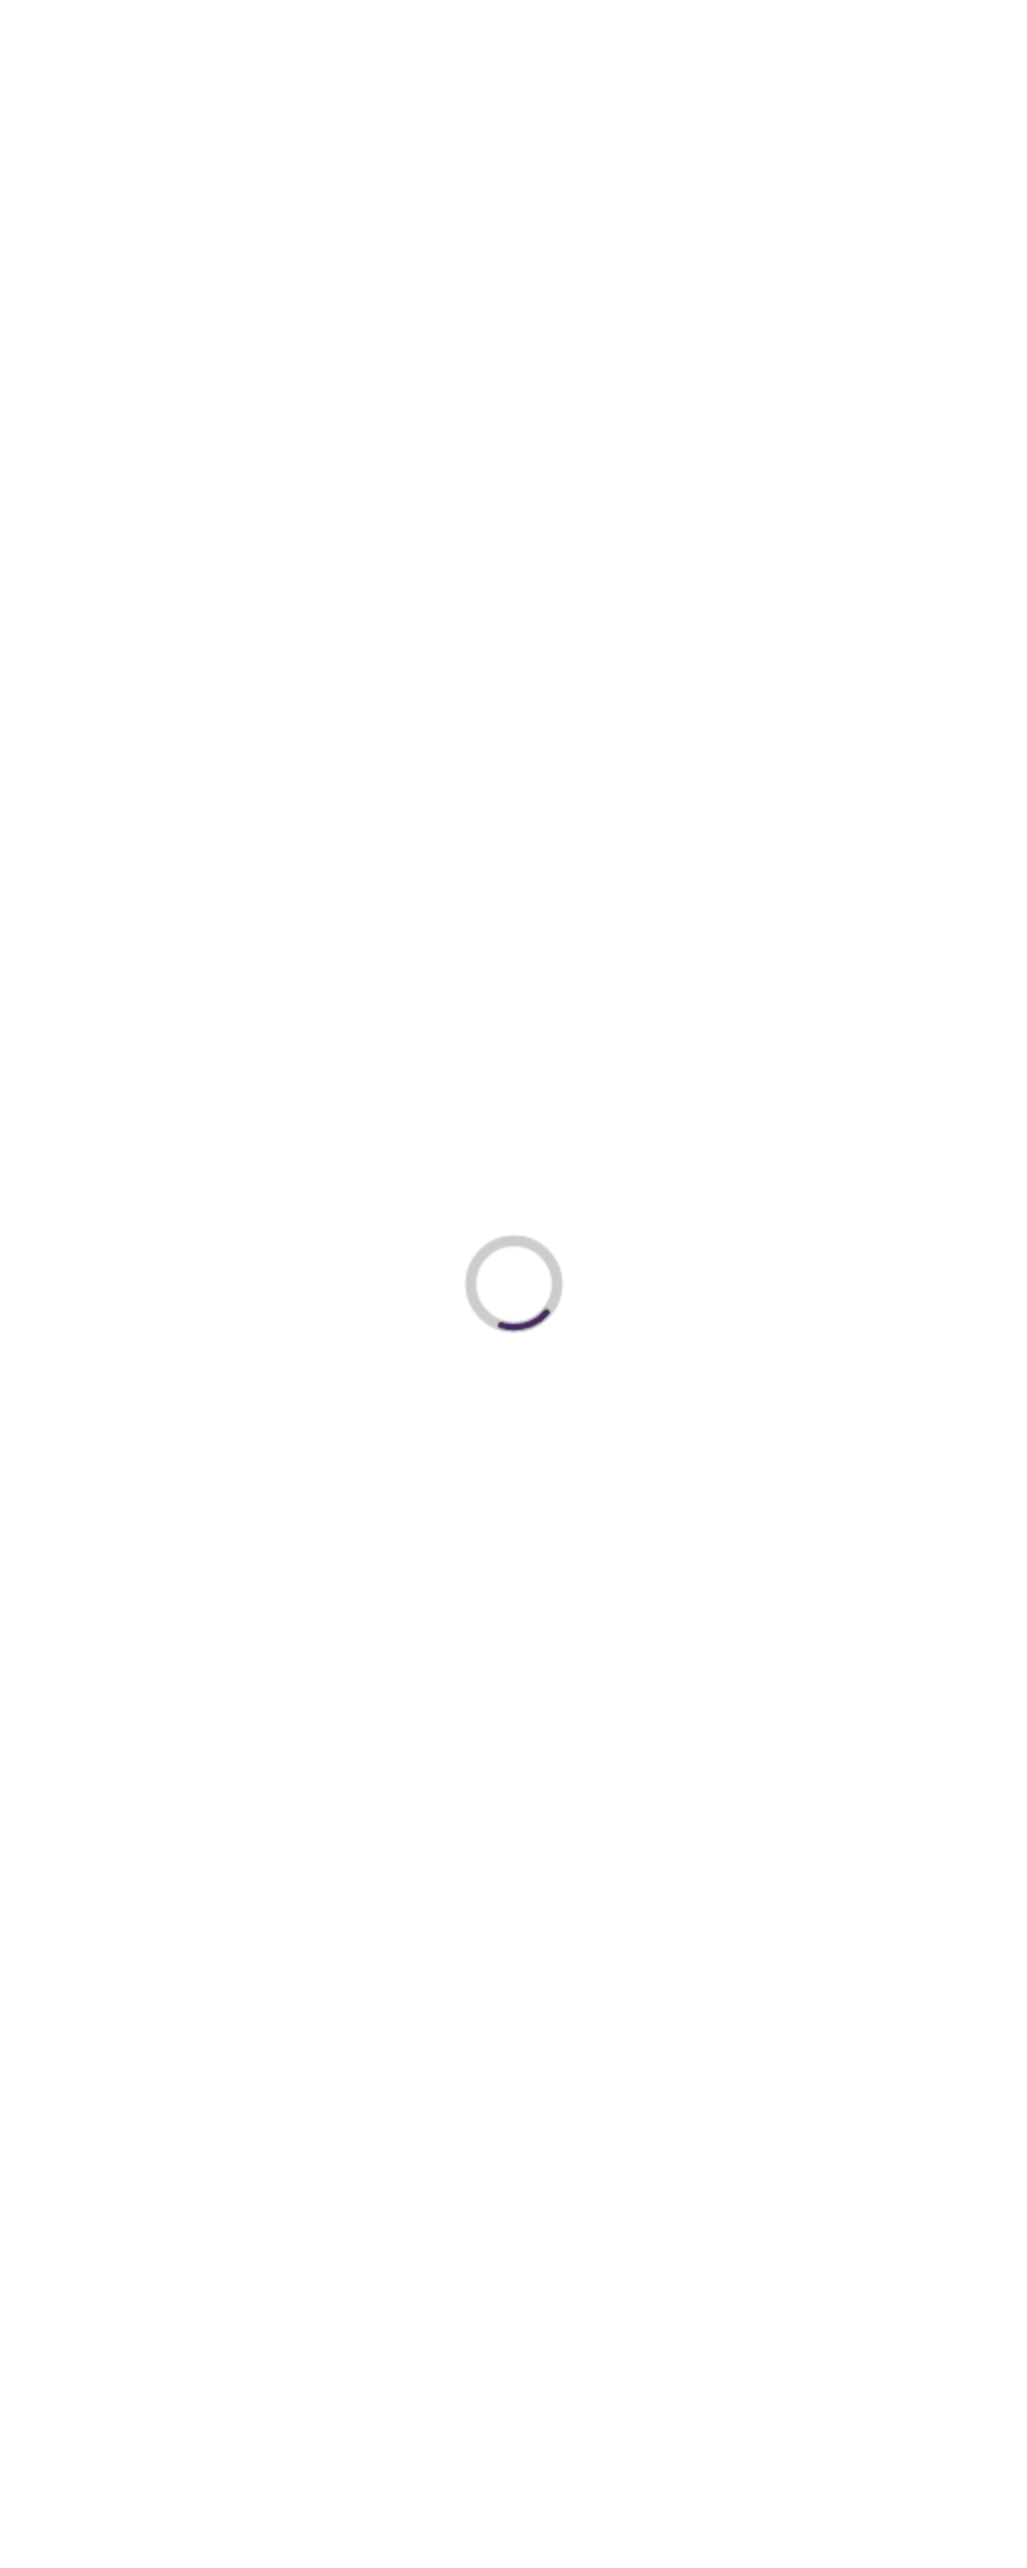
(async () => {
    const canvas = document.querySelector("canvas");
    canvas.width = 1027;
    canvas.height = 2568;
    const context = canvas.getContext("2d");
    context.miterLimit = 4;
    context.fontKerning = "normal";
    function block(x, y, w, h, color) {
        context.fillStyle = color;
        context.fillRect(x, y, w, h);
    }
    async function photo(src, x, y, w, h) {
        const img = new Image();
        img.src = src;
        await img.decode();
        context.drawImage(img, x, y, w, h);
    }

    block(0, 0, 1027, 2568, "rgb(255, 255, 255)");
    await photo("media/1.png", 464, 1234, 100, 100);
})();
